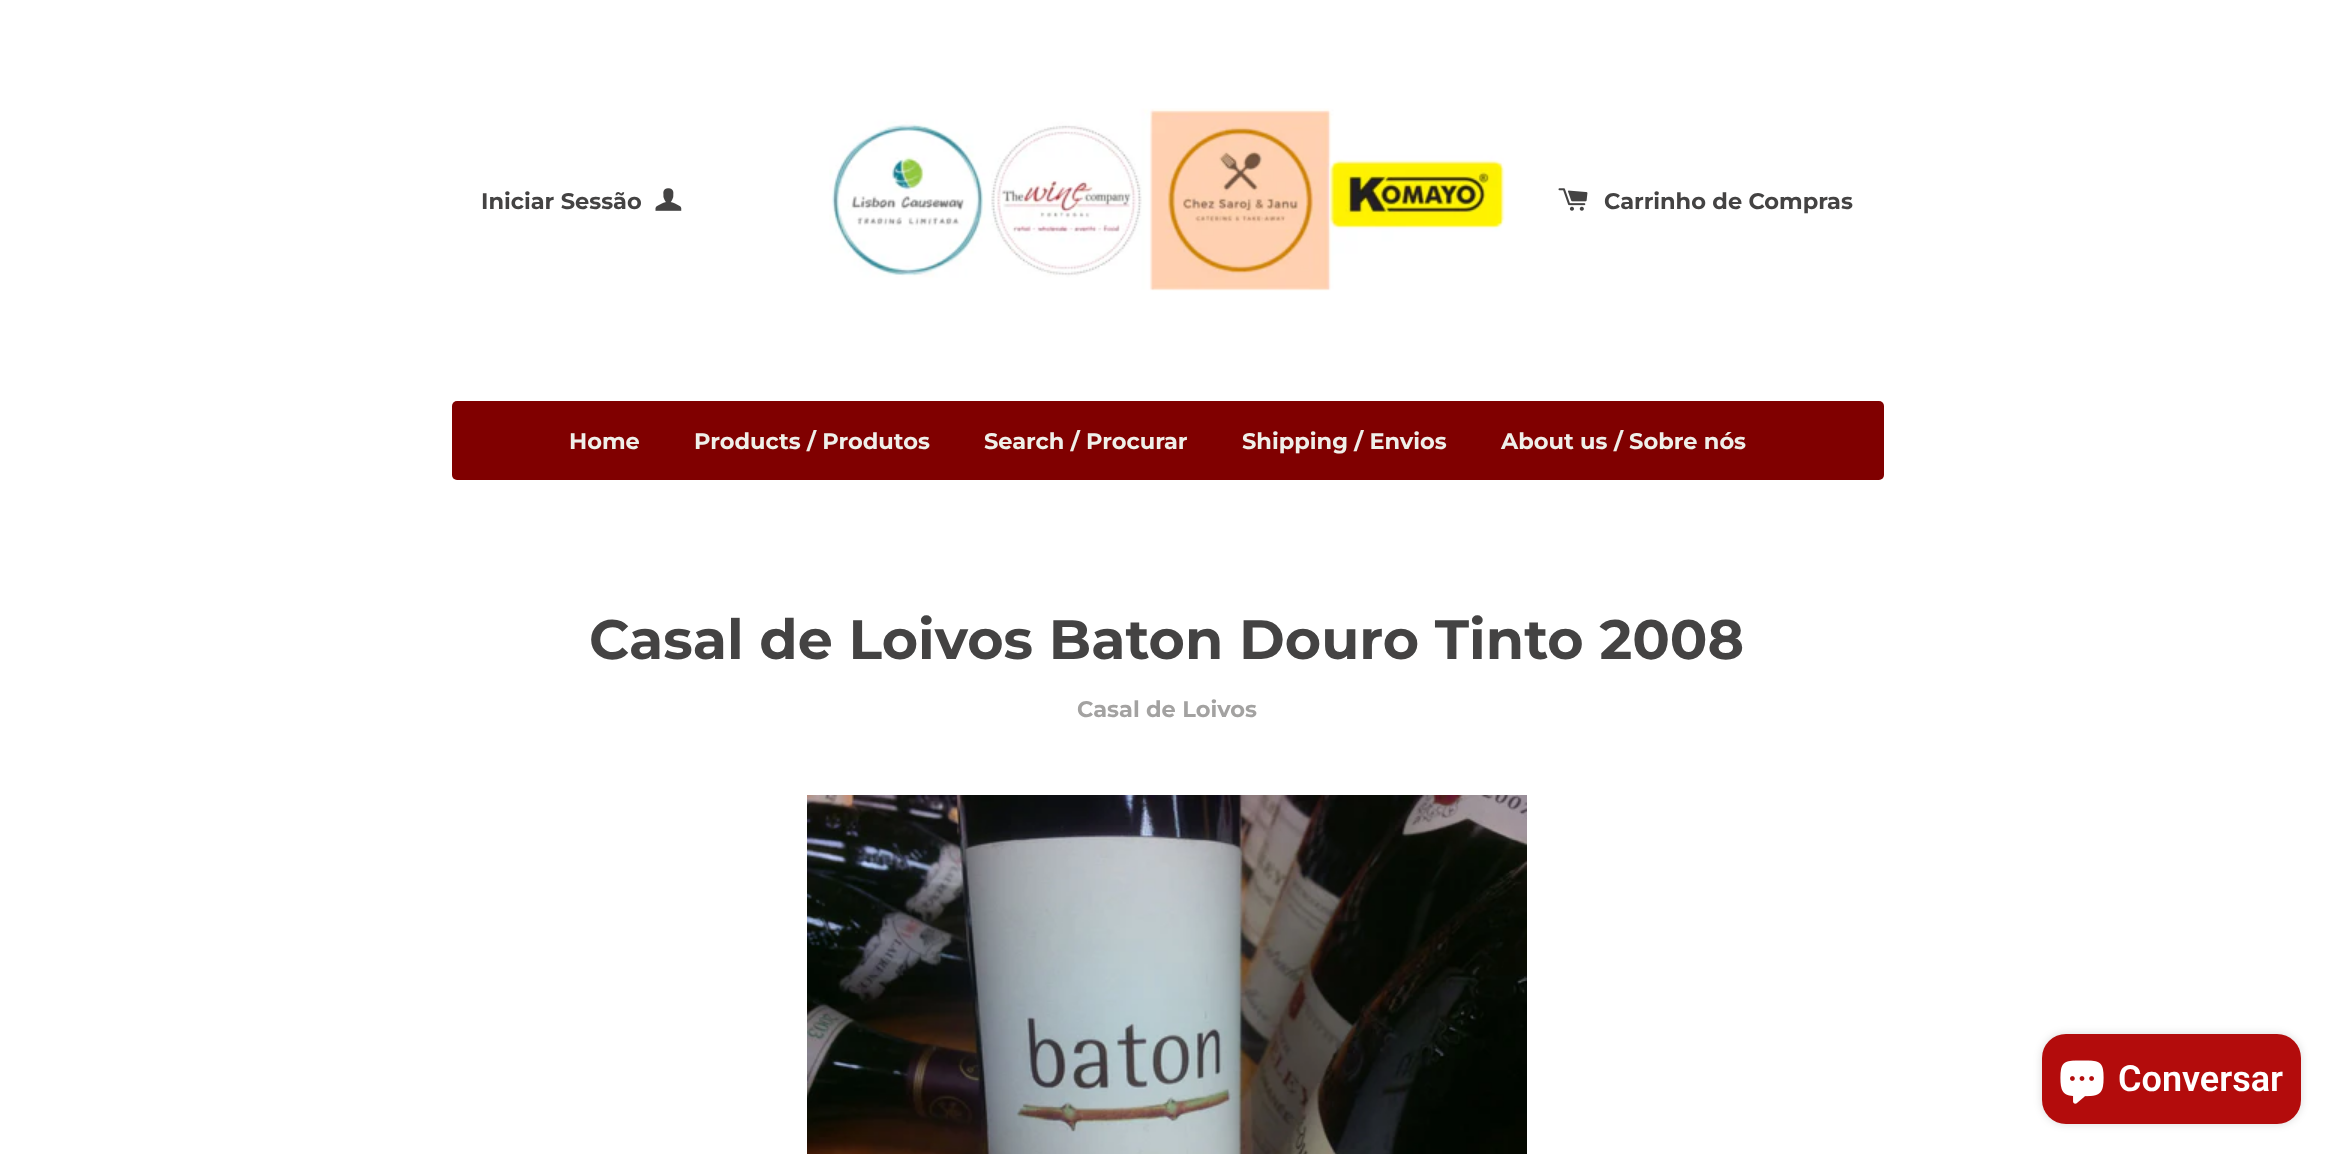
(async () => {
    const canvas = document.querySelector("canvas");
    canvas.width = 2333;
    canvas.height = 1154;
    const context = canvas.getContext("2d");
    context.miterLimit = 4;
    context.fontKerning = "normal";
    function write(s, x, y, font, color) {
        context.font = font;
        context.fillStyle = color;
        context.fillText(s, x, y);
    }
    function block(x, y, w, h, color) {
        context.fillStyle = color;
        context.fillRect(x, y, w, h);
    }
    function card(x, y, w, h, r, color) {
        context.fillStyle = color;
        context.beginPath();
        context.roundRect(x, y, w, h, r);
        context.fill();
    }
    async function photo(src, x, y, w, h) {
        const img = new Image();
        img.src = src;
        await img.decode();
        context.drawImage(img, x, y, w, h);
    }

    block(0, 0, 2333, 1154, "rgb(255, 255, 255)");
    write("Iniciar Sessão", 481, 209, "100 22.5px Montserrat", "rgb(68, 67, 67)");
    await photo("media/1.png", 655, 188, 27, 23);
    await photo("media/2.png", 829, 108, 676, 183);
    await photo("media/3.png", 1558, 188, 30, 23);
    write("Carrinho de Compras", 1604, 209, "100 22.5px Montserrat", "rgb(68, 67, 67)");
    card(452, 401, 1432, 79, 5, "rgb(128, 0, 0)");
    write("Home", 569, 449, "100 22.5px Montserrat", "rgb(239, 239, 233)");
    write("Products / Produtos", 694, 449, "100 22.5px Montserrat", "rgb(239, 239, 233)");
    write("Search / Procurar", 984, 449, "100 22.5px Montserrat", "rgb(239, 239, 233)");
    write("Shipping / Envios", 1242, 449, "100 22.5px Montserrat", "rgb(239, 239, 233)");
    write("About us / Sobre nós", 1501, 449, "100 22.5px Montserrat", "rgb(239, 239, 233)");
    write("Casal de Loivos Baton Douro Tinto 2008", 589, 659, "100 55.5px Montserrat", "rgb(68, 67, 67)");
    write("Casal de Loivos", 1077, 717, "100 22.5px Montserrat", "rgb(163, 162, 161)");
    await photo("media/4.png", 807, 795, 720, 359);
    context.fillStyle = "rgba(0, 0, 0, 0.15)";
    context.filter = "blur(4px)";
    context.beginPath();
    context.roundRect(2042, 1034, 259, 90, 24);
    context.fill();
    context.filter = "none";
    card(2042, 1034, 259, 90, 24, "rgb(179, 12, 12)");
    await photo("media/5.png", 2060, 1060, 44, 44);
    write("Conversar", 2118, 1091, "600 36px Roboto", "rgb(255, 255, 255)");
})();
